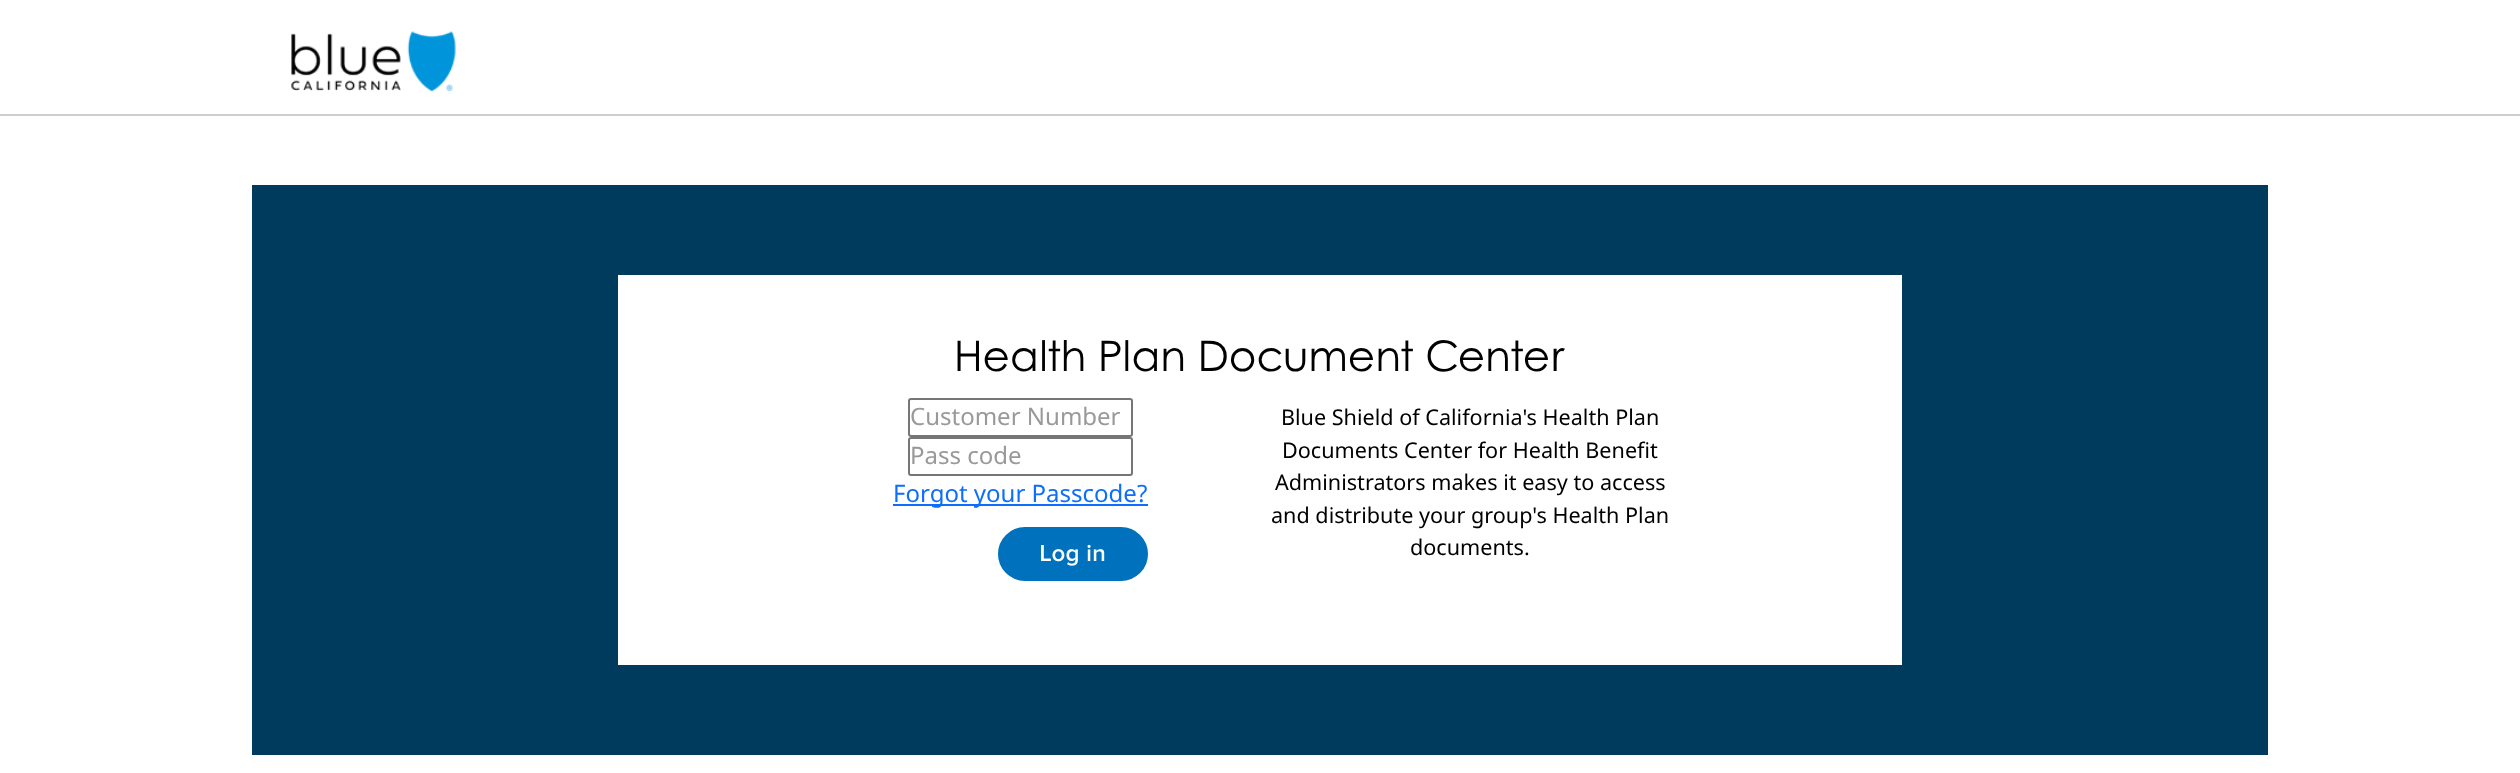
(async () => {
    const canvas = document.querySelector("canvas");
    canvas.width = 2520;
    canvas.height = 773;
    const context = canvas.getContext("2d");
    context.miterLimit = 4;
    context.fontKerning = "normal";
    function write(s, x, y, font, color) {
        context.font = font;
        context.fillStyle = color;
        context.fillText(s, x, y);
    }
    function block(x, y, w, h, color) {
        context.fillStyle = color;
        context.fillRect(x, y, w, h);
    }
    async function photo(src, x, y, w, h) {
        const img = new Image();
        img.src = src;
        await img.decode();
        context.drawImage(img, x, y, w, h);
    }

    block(0, 0, 2520, 773, "rgb(255, 255, 255)");
    block(0, 114, 2520, 2, "rgb(205, 205, 205)");
    await photo("media/1.png", 291, 31, 165, 61);
    block(252, 185, 2016, 570, "rgb(0, 58, 93)");
    block(618, 275, 1284, 390, "rgb(255, 255, 255)");
    write("Health Plan Document Center", 954, 371, "42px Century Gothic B", "rgb(0, 0, 0)");
    context.beginPath();
    context.roundRect(909, 399, 223, 37, 2);
    context.strokeStyle = "rgb(118, 118, 118)";
    context.lineWidth = 2;
    context.stroke();
    write("Customer Number", 910, 425, "24px Noto Sans", "rgb(153, 153, 153)");
    context.beginPath();
    context.roundRect(909, 438, 223, 37, 2);
    context.stroke();
    write("Pass code", 910, 464, "24px Noto Sans", "rgb(153, 153, 153)");
    block(893, 504, 255, 2, "rgb(13, 110, 253)");
    write("Forgot your Passcode?", 893, 502, "24px Noto Sans", "rgb(13, 110, 253)");
    context.fillStyle = "rgb(0, 113, 188)";
    context.beginPath();
    context.roundRect(999, 528, 148, 52, 26);
    context.fill();
    context.strokeStyle = "rgb(0, 113, 188)";
    context.stroke();
    await photo("media/2.png", 1041, 544, 64, 22);
    write("Blue Shield of California's Health Plan", 1281, 425, "21.6px Noto Sans", "rgb(0, 0, 0)");
    write("Documents Center for Health Benefit", 1282, 458, "21.6px Noto Sans", "rgb(0, 0, 0)");
    write("Administrators makes it easy to access", 1275, 490, "21.6px Noto Sans", "rgb(0, 0, 0)");
    write("and distribute your group's Health Plan", 1271, 523, "21.6px Noto Sans", "rgb(0, 0, 0)");
    write("documents.", 1410, 555, "21.6px Noto Sans", "rgb(0, 0, 0)");
})();
